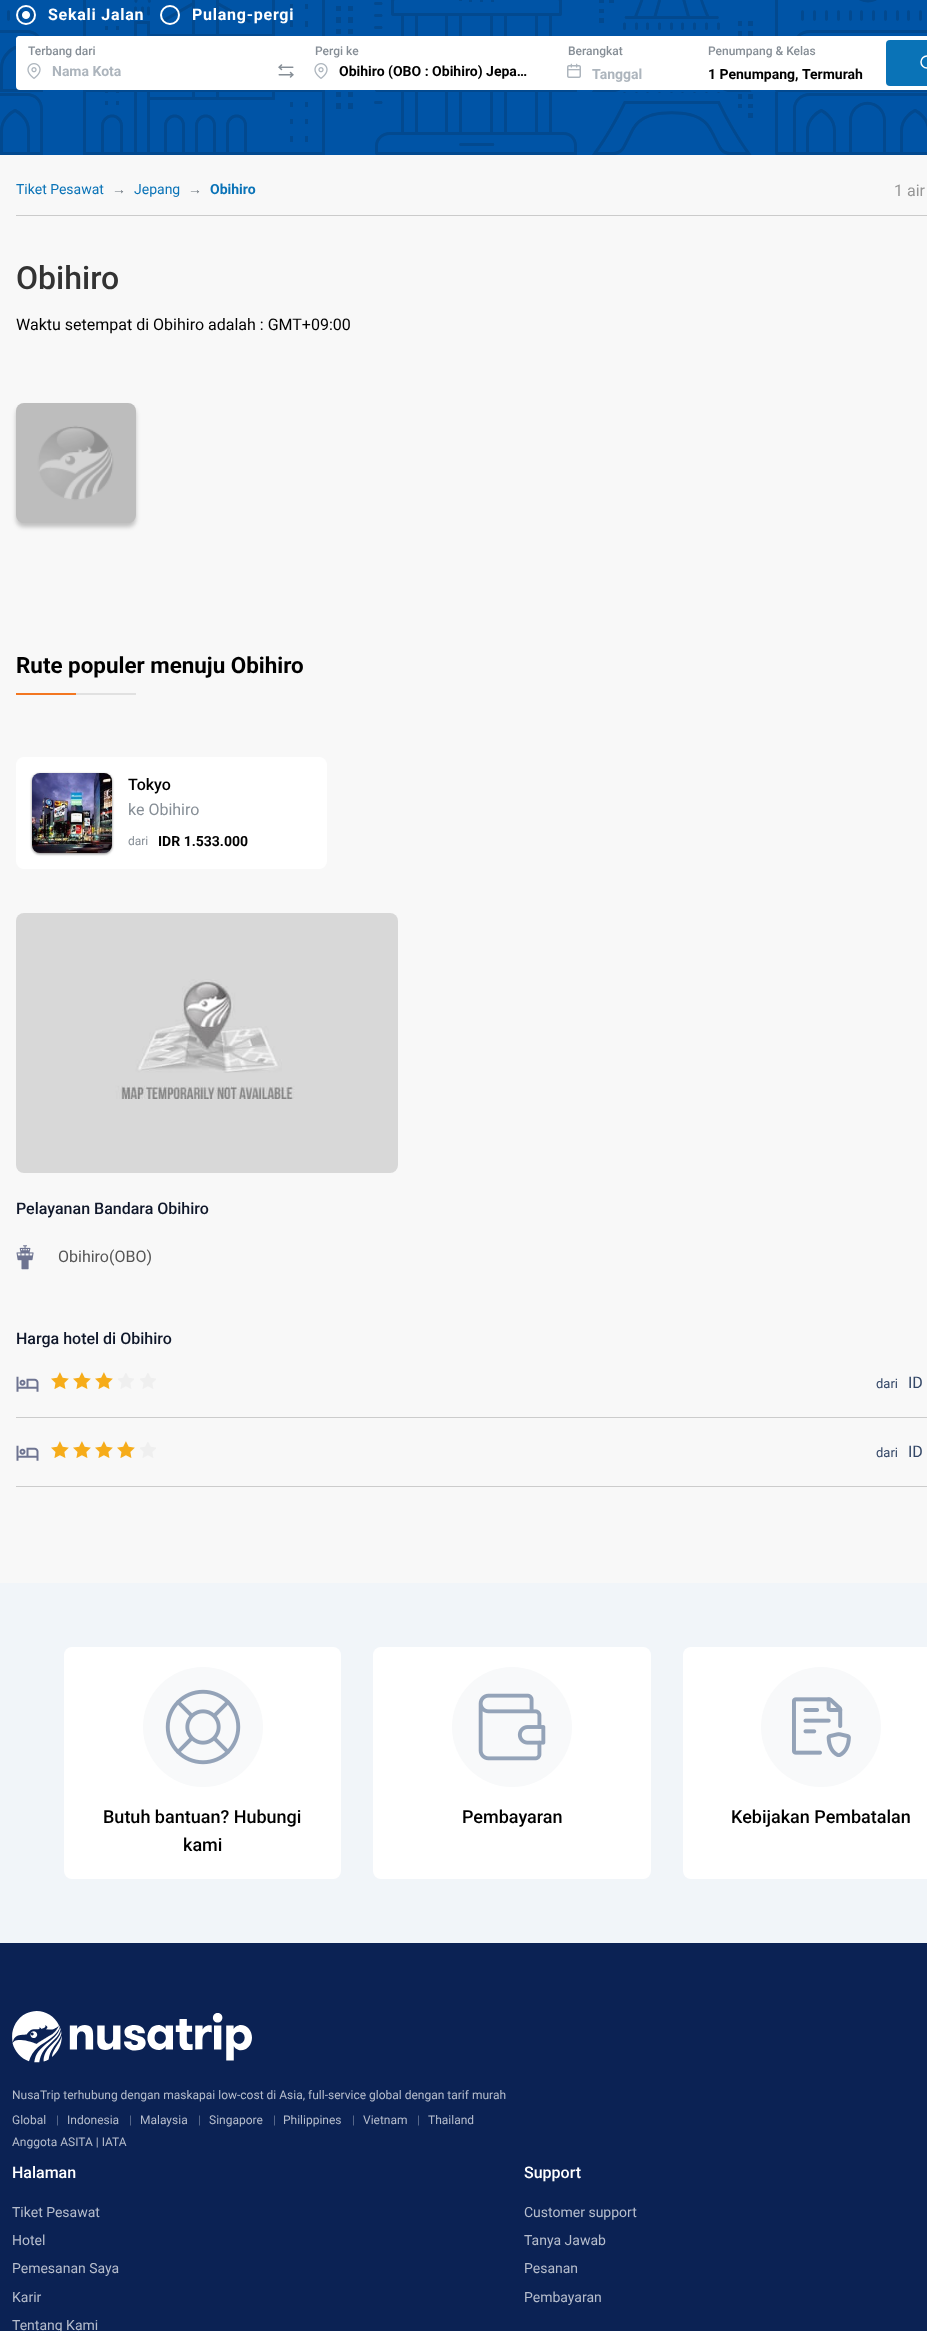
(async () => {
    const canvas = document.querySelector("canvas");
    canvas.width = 927;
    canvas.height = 2331;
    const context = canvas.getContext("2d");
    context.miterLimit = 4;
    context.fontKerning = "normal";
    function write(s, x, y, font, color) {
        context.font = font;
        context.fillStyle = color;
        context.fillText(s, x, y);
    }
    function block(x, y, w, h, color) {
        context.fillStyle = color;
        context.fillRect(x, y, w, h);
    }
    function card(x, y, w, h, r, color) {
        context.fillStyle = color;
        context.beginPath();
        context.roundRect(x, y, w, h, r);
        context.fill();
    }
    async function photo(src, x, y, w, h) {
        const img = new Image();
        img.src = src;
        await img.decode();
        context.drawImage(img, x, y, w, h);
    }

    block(0, 0, 927, 2331, "rgb(11, 34, 84)");
    block(0, 155, 927, 1428, "rgb(248, 248, 248)");
    block(0, 0, 927, 155, "rgb(0, 84, 166)");
    await photo("media/1.png", 0, 92, 927, 63);
    await photo("media/2.png", 0, 0, 927, 92);
    context.beginPath();
    context.arc(26, 15, 9, 0, Math.PI * 2);
    context.strokeStyle = "rgb(255, 255, 255)";
    context.lineWidth = 2;
    context.stroke();
    await photo("media/3.png", 22, 11, 8, 8);
    context.letterSpacing = "0.75px";
    write("Sekali Jalan", 48, 20, "bold 16px Roboto", "rgb(255, 255, 255)");
    context.beginPath();
    context.arc(170, 15, 9, 0, Math.PI * 2);
    context.stroke();
    write("Pulang-pergi", 192, 20, "bold 16px Roboto", "rgb(255, 255, 255)");
    card(16, 36, 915, 54, 4, "rgb(255, 255, 255)");
    card(16, 36, 253, 48, 4, "rgb(255, 255, 255)");
    context.letterSpacing = "0px";
    write("Terbang dari", 28, 55, "500 12px Roboto", "rgb(134, 142, 150)");
    await photo("media/4.png", 27, 63, 14, 16);
    write("Nama Kota", 52, 76, "bold 14px Roboto", "rgb(173, 181, 189)");
    await photo("media/5.png", 278, 64, 16, 14);
    write("Pergi ke", 315, 55, "500 12px Roboto", "rgb(134, 142, 150)");
    await photo("media/4.png", 314, 63, 14, 16);
    write("Obihiro (OBO : Obihiro) Jepa…", 339, 76, "bold 14px Roboto", "rgb(0, 0, 0)");
    write("Berangkat", 568, 55, "500 12px Roboto", "rgb(134, 142, 150)");
    await photo("media/6.png", 567, 63, 14, 15);
    write("Tanggal", 592, 79, "bold 14px Roboto", "rgb(173, 181, 189)");
    write("Penumpang & Kelas", 708, 55, "500 12px Roboto", "rgb(134, 142, 150)");
    write("1 Penumpang,", 708, 79, "bold 14px Roboto", "rgb(0, 0, 0)");
    write("Termurah", 802, 79, "bold 14px Roboto", "rgb(0, 0, 0)");
    card(886, 40, 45, 46, 4, "rgb(10, 115, 183)");
    context.beginPath();
    context.arc(927, 62, 6, 0, Math.PI * 2);
    context.lineWidth = 1.5;
    context.stroke();
    write("Tiket Pesawat", 16, 194, "14px Roboto", "rgb(10, 115, 183)");
    write("→", 112, 194, "14px Liberation Sans", "rgb(108, 117, 125)");
    write("Jepang", 134, 194, "14px Roboto", "rgb(10, 115, 183)");
    write("→", 188, 194, "bold 14px Liberation Sans", "rgb(108, 117, 125)");
    write("Obihiro", 210, 194, "bold 14px Roboto", "rgb(10, 115, 183)");
    write("1 air", 894, 196, "16px Roboto", "rgb(150, 150, 150)");
    block(16, 215, 911, 1, "rgb(203, 203, 203)");
    write("Obihiro", 16, 289, "500 32px Roboto", "rgb(51, 51, 51)");
    write("Waktu setempat di Obihiro adalah : GMT+09:00", 16, 330, "16px Roboto", "rgb(0, 0, 0)");
    context.fillStyle = "rgba(26, 26, 26, 0.25)";
    context.filter = "blur(2px)";
    context.beginPath();
    context.roundRect(16, 407, 120, 120, 8);
    context.fill();
    context.filter = "none";
    await photo("media/7.png", 16, 403, 120, 120);
    write("Rute populer menuju Obihiro", 16, 673, "bold 22.4px Roboto", "rgb(0, 0, 0)");
    block(76, 693, 60, 2, "rgb(225, 225, 225)");
    block(16, 693, 60, 2, "rgb(243, 119, 33)");
    card(16, 757, 311, 112, 8, "rgb(255, 255, 255)");
    context.fillStyle = "rgba(0, 0, 0, 0.3)";
    context.filter = "blur(1px)";
    context.beginPath();
    context.roundRect(32, 774, 80, 80, 8);
    context.fill();
    context.filter = "none";
    context.fillStyle = "rgba(0, 0, 0, 0.2)";
    context.filter = "blur(1.5px)";
    context.beginPath();
    context.roundRect(32, 774, 80, 80, 8);
    context.fill();
    context.filter = "none";
    await photo("media/8.png", 32, 773, 80, 80);
    write("Tokyo", 128, 790, "500 16px Roboto", "rgb(0, 0, 0)");
    write("ke Obihiro", 128, 815, "16px Roboto", "rgb(134, 142, 150)");
    write("dari", 128, 845, "12px Roboto", "rgb(134, 142, 150)");
    write("IDR 1.533.000", 158, 846, "bold 14px Roboto", "rgb(0, 0, 0)");
    await photo("media/9.png", 16, 913, 382, 260);
    write("Pelayanan Bandara Obihiro", 16, 1214, "500 16px Roboto", "rgb(15, 23, 42)");
    await photo("media/10.png", 16, 1245, 18, 25);
    write("Obihiro(OBO)", 58, 1262, "16px Roboto", "rgb(85, 85, 85)");
    write("Harga hotel di Obihiro", 16, 1344, "500 16px Roboto", "rgb(15, 23, 42)");
    block(16, 1417, 911, 1, "rgb(204, 204, 204)");
    await photo("media/11.png", 16, 1376, 23, 16);
    await photo("media/12.png", 51, 1372, 18, 17);
    await photo("media/12.png", 73, 1372, 18, 17);
    await photo("media/12.png", 95, 1372, 18, 17);
    await photo("media/13.png", 118, 1373, 16, 16);
    await photo("media/13.png", 140, 1373, 16, 16);
    write("dari", 876, 1388, "13px Roboto", "rgb(52, 71, 103)");
    write("ID", 908, 1388, "16px Roboto", "rgb(52, 71, 103)");
    block(16, 1486, 911, 1, "rgb(204, 204, 204)");
    await photo("media/11.png", 16, 1445, 23, 16);
    await photo("media/12.png", 51, 1441, 18, 17);
    await photo("media/12.png", 73, 1441, 18, 17);
    await photo("media/12.png", 95, 1441, 18, 17);
    await photo("media/12.png", 117, 1441, 18, 17);
    await photo("media/13.png", 140, 1442, 16, 16);
    write("dari", 876, 1457, "13px Roboto", "rgb(52, 71, 103)");
    write("ID", 908, 1457, "16px Roboto", "rgb(52, 71, 103)");
    block(0, 1583, 927, 360, "rgb(241, 245, 249)");
    card(64, 1647, 277, 232, 8, "rgb(255, 255, 255)");
    context.fillStyle = "rgb(248, 249, 250)";
    context.beginPath();
    context.arc(203, 1727, 60, 0, Math.PI * 2);
    context.fill();
    await photo("media/14.png", 165, 1689, 76, 76);
    write("Butuh bantuan? Hubungi", 103, 1823, "500 18px Roboto", "rgb(0, 0, 0)");
    write("kami", 183, 1851, "500 18px Roboto", "rgb(0, 0, 0)");
    card(373, 1647, 278, 232, 8, "rgb(255, 255, 255)");
    context.fillStyle = "rgb(248, 249, 250)";
    context.beginPath();
    context.arc(512, 1727, 60, 0, Math.PI * 2);
    context.fill();
    await photo("media/15.png", 478, 1693, 68, 68);
    write("Pembayaran", 462, 1823, "500 18px Roboto", "rgb(0, 0, 0)");
    card(683, 1647, 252, 232, 8, "rgb(255, 255, 255)");
    context.fillStyle = "rgb(248, 249, 250)";
    context.beginPath();
    context.arc(821, 1727, 60, 0, Math.PI * 2);
    context.fill();
    await photo("media/16.png", 792, 1697, 59, 60);
    write("Kebijakan Pembatalan", 731, 1823, "500 18px Roboto", "rgb(0, 0, 0)");
    await photo("media/17.png", 12, 2011, 240, 52);
    write("NusaTrip terhubung dengan maskapai low-cost di Asia, full-service global dengan tarif murah", 12, 2099, "12px Roboto", "rgb(182, 189, 204)");
    write("Global", 12, 2124, "12px Roboto", "rgb(182, 189, 204)");
    write("|", 56, 2124, "12px Roboto", "rgb(96, 112, 144)");
    write("Indonesia", 67, 2124, "12px Roboto", "rgb(182, 189, 204)");
    write("|", 129, 2124, "12px Roboto", "rgb(96, 112, 144)");
    write("Malaysia", 140, 2124, "12px Roboto", "rgb(182, 189, 204)");
    write("|", 198, 2124, "12px Roboto", "rgb(96, 112, 144)");
    write("Singapore", 209, 2124, "12px Roboto", "rgb(182, 189, 204)");
    write("|", 273, 2124, "12px Roboto", "rgb(96, 112, 144)");
    write("Philippines", 283, 2124, "12px Roboto", "rgb(182, 189, 204)");
    write("|", 352, 2124, "12px Roboto", "rgb(96, 112, 144)");
    write("Vietnam", 363, 2124, "12px Roboto", "rgb(182, 189, 204)");
    write("|", 417, 2124, "12px Roboto", "rgb(96, 112, 144)");
    write("Thailand", 428, 2124, "12px Roboto", "rgb(182, 189, 204)");
    write("Anggota ASITA | IATA", 12, 2146, "12px Roboto", "rgb(182, 189, 204)");
    write("Halaman", 12, 2178, "500 16px Roboto", "rgb(255, 255, 255)");
    write("Tiket Pesawat", 12, 2217, "14px Roboto", "rgb(182, 189, 204)");
    write("Hotel", 12, 2245, "14px Roboto", "rgb(182, 189, 204)");
    write("Pemesanan Saya", 12, 2273, "14px Roboto", "rgb(182, 189, 204)");
    write("Karir", 12, 2302, "14px Roboto", "rgb(182, 189, 204)");
    write("Tentang Kami", 12, 2330, "14px Roboto", "rgb(182, 189, 204)");
    write("Support", 524, 2178, "500 16px Roboto", "rgb(255, 255, 255)");
    write("Customer support", 524, 2217, "14px Roboto", "rgb(182, 189, 204)");
    write("Tanya Jawab", 524, 2245, "14px Roboto", "rgb(182, 189, 204)");
    write("Pesanan", 524, 2273, "14px Roboto", "rgb(182, 189, 204)");
    write("Pembayaran", 524, 2302, "14px Roboto", "rgb(182, 189, 204)");
})();
